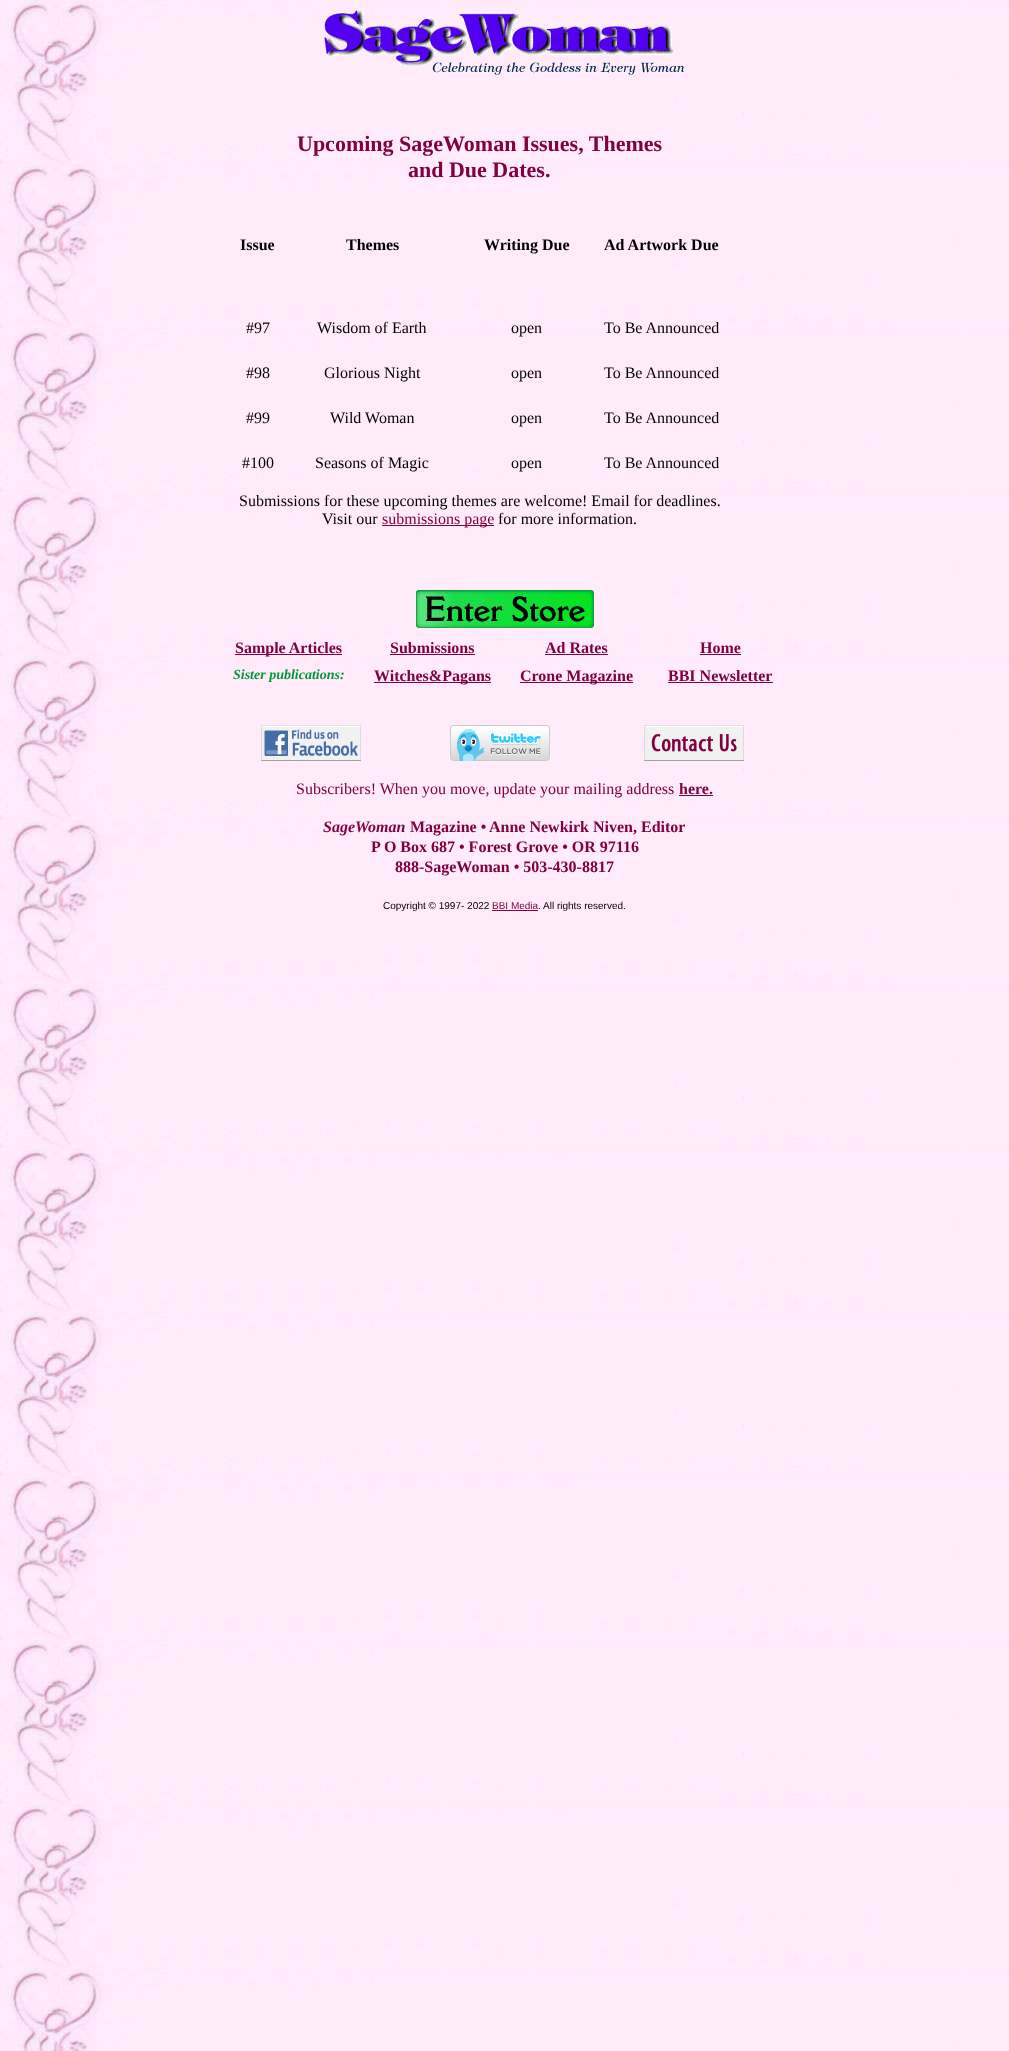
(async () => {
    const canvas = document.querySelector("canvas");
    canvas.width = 1009;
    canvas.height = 2051;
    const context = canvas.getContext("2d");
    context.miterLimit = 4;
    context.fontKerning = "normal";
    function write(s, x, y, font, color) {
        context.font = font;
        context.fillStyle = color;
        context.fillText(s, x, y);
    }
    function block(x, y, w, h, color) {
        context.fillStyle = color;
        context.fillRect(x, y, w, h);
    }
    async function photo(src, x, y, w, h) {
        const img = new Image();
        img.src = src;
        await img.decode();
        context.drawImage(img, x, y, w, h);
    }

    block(0, 0, 1009, 2051, "rgb(255, 255, 255)");
    await photo("media/1.png", 0, 0, 1009, 2051);
    await photo("media/2.png", 324, 9, 361, 66);
    write("Upcoming SageWoman Issues, Themes", 297, 151, "bold 22px Liberation Serif", "rgb(128, 0, 64)");
    write("and Due Dates.", 408, 177, "bold 22px Liberation Serif", "rgb(128, 0, 64)");
    write("Issue", 240, 250, "bold 16px Liberation Serif", "rgb(0, 0, 0)");
    write("Themes", 346, 250, "bold 16px Liberation Serif", "rgb(0, 0, 0)");
    write("Writing Due", 484, 250, "bold 16px Liberation Serif", "rgb(0, 0, 0)");
    write("Ad Artwork Due", 604, 250, "bold 16px Liberation Serif", "rgb(0, 0, 0)");
    write("#97", 246, 333, "16px Liberation Serif", "rgb(0, 0, 0)");
    write("Wisdom of Earth", 317, 333, "16px Liberation Serif", "rgb(0, 0, 0)");
    write("open", 511, 333, "16px Liberation Serif", "rgb(0, 0, 0)");
    write("To Be Announced", 604, 333, "16px Liberation Serif", "rgb(0, 0, 0)");
    write("#98", 246, 378, "16px Liberation Serif", "rgb(0, 0, 0)");
    write("Glorious Night", 324, 378, "16px Liberation Serif", "rgb(0, 0, 0)");
    write("open", 511, 378, "16px Liberation Serif", "rgb(0, 0, 0)");
    write("To Be Announced", 604, 378, "16px Liberation Serif", "rgb(0, 0, 0)");
    write("#99", 246, 423, "16px Liberation Serif", "rgb(0, 0, 0)");
    write("Wild Woman", 330, 423, "16px Liberation Serif", "rgb(0, 0, 0)");
    write("open", 511, 423, "16px Liberation Serif", "rgb(0, 0, 0)");
    write("To Be Announced", 604, 423, "16px Liberation Serif", "rgb(0, 0, 0)");
    write("#100", 242, 468, "16px Liberation Serif", "rgb(0, 0, 0)");
    write("Seasons of Magic", 315, 468, "16px Liberation Serif", "rgb(0, 0, 0)");
    write("open", 511, 468, "16px Liberation Serif", "rgb(0, 0, 0)");
    write("To Be Announced", 604, 468, "16px Liberation Serif", "rgb(0, 0, 0)");
    write("Submissions for these upcoming themes are welcome! Email for deadlines.", 239, 506, "16px Liberation Serif", "rgb(0, 0, 0)");
    write("Visit our", 322, 524, "16px Liberation Serif", "rgb(0, 0, 0)");
    block(382, 525, 112, 1, "rgb(128, 0, 64)");
    write("submissions page", 382, 524, "16px Liberation Serif", "rgb(128, 0, 64)");
    write("for more information.", 498, 524, "16px Liberation Serif", "rgb(0, 0, 0)");
    await photo("media/3.png", 416, 590, 178, 38);
    block(235, 654, 107, 1, "rgb(128, 0, 64)");
    write("Sample Articles", 235, 653, "bold 16px Liberation Serif", "rgb(128, 0, 64)");
    write("Submissions", 390, 653, "bold 16px Liberation Serif", "rgb(128, 0, 64)");
    block(390, 654, 85, 1, "rgb(128, 0, 64)");
    write("Ad Rates", 545, 653, "bold 16px Liberation Serif", "rgb(128, 0, 64)");
    block(545, 654, 63, 1, "rgb(128, 0, 64)");
    write("Home", 700, 653, "bold 16px Liberation Serif", "rgb(128, 0, 64)");
    block(700, 654, 41, 1, "rgb(128, 0, 64)");
    write("Sister publications:", 233, 679, "italic bold 14px Liberation Serif", "rgb(0, 153, 51)");
    block(374, 682, 117, 1, "rgb(128, 0, 64)");
    write("Witches&Pagans", 374, 681, "bold 16px Liberation Serif", "rgb(128, 0, 64)");
    block(520, 682, 113, 1, "rgb(128, 0, 64)");
    write("Crone Magazine", 520, 681, "bold 16px Liberation Serif", "rgb(128, 0, 64)");
    write("BBI Newsletter", 668, 681, "bold 16px Liberation Serif", "rgb(128, 0, 64)");
    block(668, 682, 105, 1, "rgb(128, 0, 64)");
    await photo("media/4.png", 261, 725, 100, 36);
    await photo("media/5.png", 450, 725, 100, 36);
    await photo("media/6.png", 644, 725, 100, 36);
    write("Subscribers! When you move, update your mailing address", 296, 794, "16px Liberation Serif", "rgb(128, 0, 64)");
    write("here.", 679, 794, "bold 16px Liberation Serif", "rgb(128, 0, 64)");
    block(679, 795, 34, 1, "rgb(128, 0, 64)");
    write("SageWoman", 323, 832, "italic bold 16px Liberation Serif", "rgb(128, 0, 64)");
    write("Magazine •", 410, 832, "bold 16px Liberation Serif", "rgb(128, 0, 64)");
    write("Anne Newkirk Niven, Editor", 489, 832, "bold 16px Liberation Serif", "rgb(128, 0, 64)");
    write("P O Box 687 • Forest Grove • OR 97116", 371, 852, "bold 16px Liberation Serif", "rgb(128, 0, 64)");
    write("888-SageWoman • 503-430-8817", 395, 872, "bold 16px Liberation Serif", "rgb(128, 0, 64)");
    write("Copyright © 1997- 2022", 383, 909, "10px Liberation Sans", "rgb(0, 0, 0)");
    write("BBI Media", 492, 909, "10px Liberation Sans", "rgb(128, 0, 64)");
    write(". All rights reserved.", 538, 909, "10px Liberation Sans", "rgb(0, 0, 0)");
    block(492, 910, 46, 1, "rgb(128, 0, 64)");
})();
